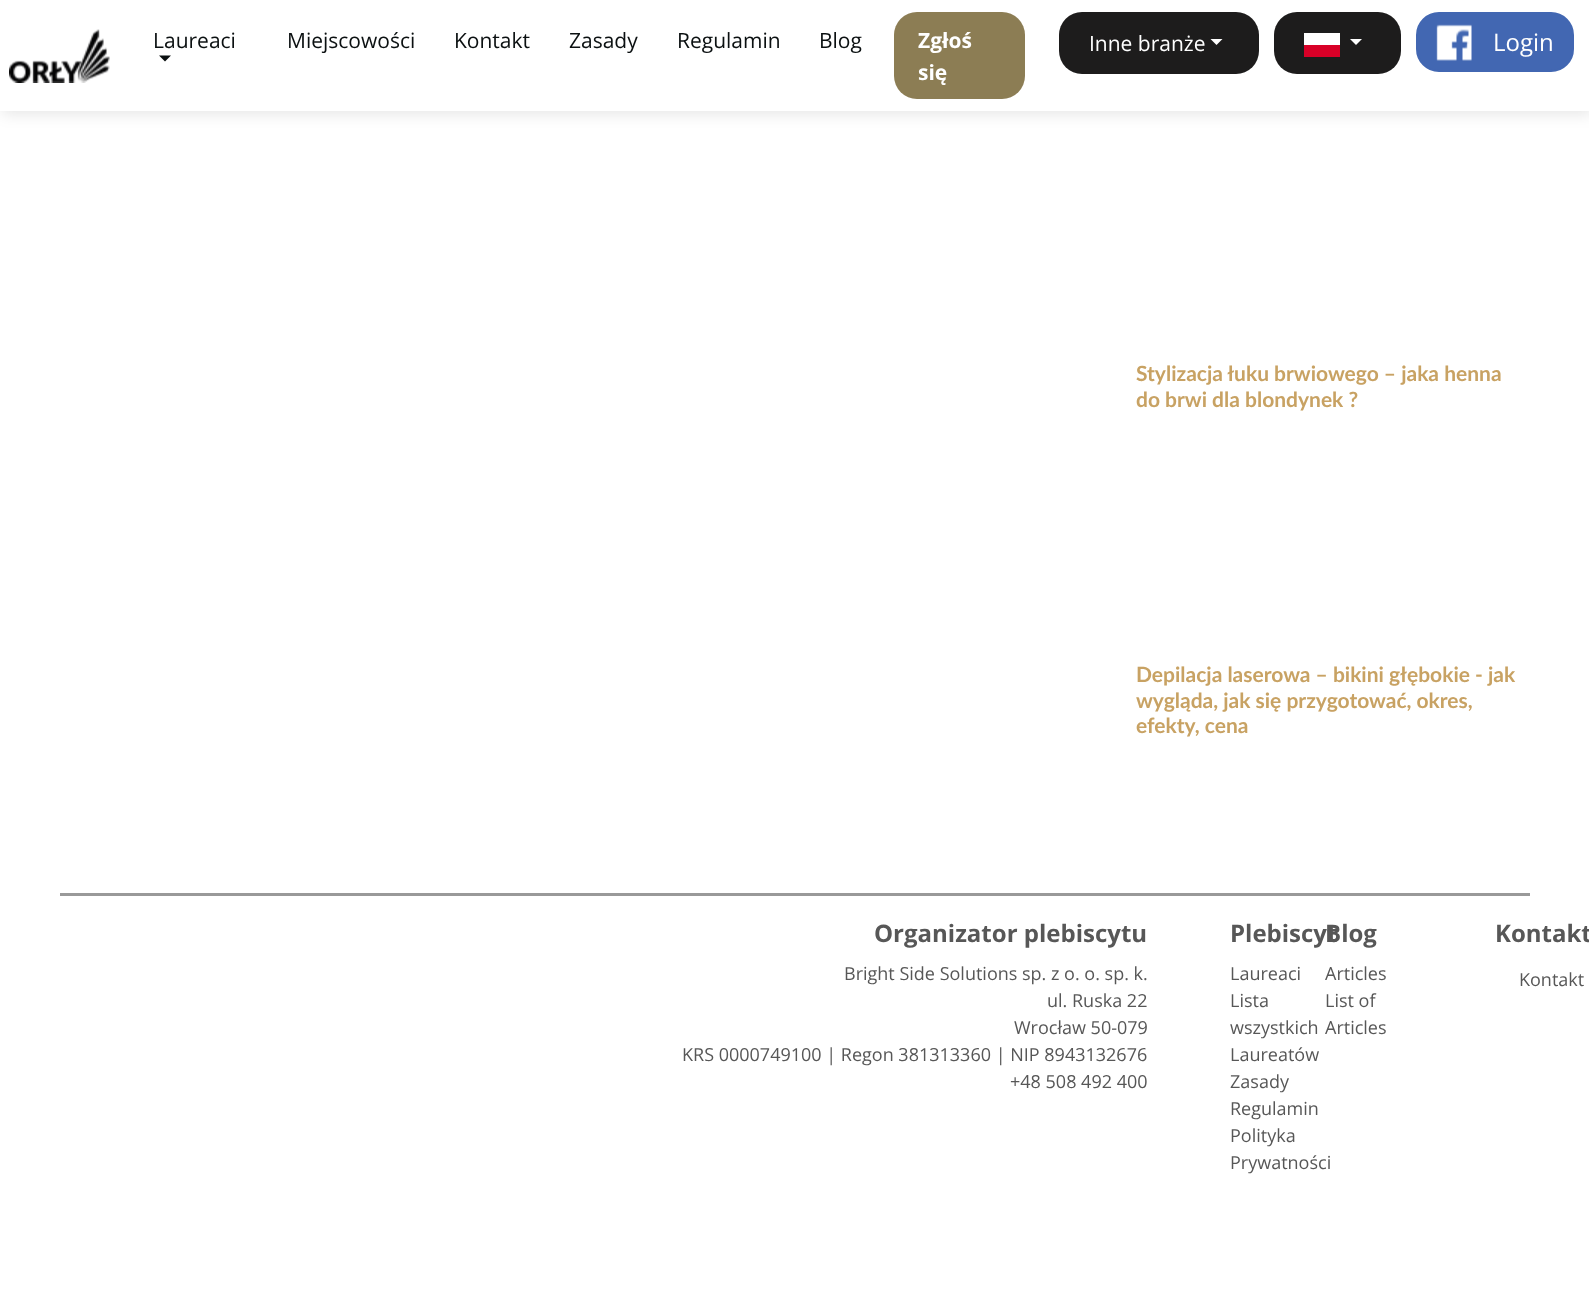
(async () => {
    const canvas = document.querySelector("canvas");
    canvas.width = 1589;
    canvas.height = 1295;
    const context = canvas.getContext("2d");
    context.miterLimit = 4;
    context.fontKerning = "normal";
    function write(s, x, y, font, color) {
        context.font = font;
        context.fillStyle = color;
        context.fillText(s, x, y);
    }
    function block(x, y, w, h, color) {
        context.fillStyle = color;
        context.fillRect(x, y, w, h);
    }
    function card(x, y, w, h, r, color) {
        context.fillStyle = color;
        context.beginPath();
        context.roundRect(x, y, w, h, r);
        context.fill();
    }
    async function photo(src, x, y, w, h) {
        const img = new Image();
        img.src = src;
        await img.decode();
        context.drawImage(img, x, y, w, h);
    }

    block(0, 0, 1589, 1295, "rgb(255, 255, 255)");
    context.fillStyle = "rgba(0, 0, 0, 0.1)";
    context.filter = "blur(7.5px)";
    context.beginPath();
    context.rect(2, 3, 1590, 111);
    context.fill();
    context.filter = "none";
    block(0, 0, 1589, 111, "rgb(255, 255, 255)");
    await photo("media/1.png", 9, 29, 101, 54);
    write("Laureaci", 153, 48, "21px Open Sans", "rgb(11, 16, 17)");
    context.beginPath();
    context.moveTo(159, 55.5);
    context.lineTo(171, 55.5);
    context.lineTo(165, 61.5);
    context.closePath();
    context.fill();
    write("Miejscowości", 287, 48, "21px Open Sans", "rgb(11, 16, 17)");
    write("Kontakt", 454, 48, "21px Open Sans", "rgb(11, 16, 17)");
    write("Zasady", 569, 48, "21px Open Sans", "rgb(11, 16, 17)");
    write("Regulamin", 677, 48, "21px Open Sans", "rgb(11, 16, 17)");
    write("Blog", 819, 48, "21px Open Sans", "rgb(11, 16, 17)");
    card(894, 12, 131, 87, 23, "rgb(140, 125, 84)");
    write("Zgłoś", 918, 48, "bold 21px Open Sans", "rgb(255, 255, 255)");
    write("się", 918, 80, "bold 21px Open Sans", "rgb(255, 255, 255)");
    card(1059, 12, 200, 62, 23, "rgb(29, 28, 28)");
    write("Inne branże", 1089, 51, "21px Open Sans", "rgb(255, 255, 255)");
    context.beginPath();
    context.moveTo(1210.5, 39);
    context.lineTo(1222.5, 39);
    context.lineTo(1216.5, 45);
    context.closePath();
    context.fill();
    card(1274, 12, 127, 62, 23, "rgb(29, 28, 28)");
    block(1304, 33, 36, 12, "rgb(255, 255, 255)");
    context.beginPath();
    context.moveTo(1350, 39);
    context.lineTo(1362, 39);
    context.lineTo(1356, 45);
    context.closePath();
    context.fill();
    block(1304, 45, 36, 12, "rgb(216, 0, 39)");
    context.fillStyle = "rgb(66, 103, 178)";
    context.beginPath();
    context.roundRect(1417, 13, 156, 58, 22);
    context.fill();
    context.strokeStyle = "rgb(66, 103, 178)";
    context.lineWidth = 2;
    context.stroke();
    await photo("media/2.png", 1436, 24, 36, 37);
    write("Login", 1493, 51, "24px Open Sans", "rgb(255, 255, 255)");
    write("Stylizacja łuku brwiowego – jaka henna", 1136, 381, "bold 21px Lato", "rgb(200, 162, 99)");
    write("do brwi dla blondynek ?", 1136, 407, "bold 21px Lato", "rgb(200, 162, 99)");
    write("Depilacja laserowa – bikini głębokie - jak", 1136, 682, "bold 21px Lato", "rgb(200, 162, 99)");
    write("wygląda, jak się przygotować, okres,", 1136, 708, "bold 21px Lato", "rgb(200, 162, 99)");
    write("efekty, cena", 1136, 733, "bold 21px Lato", "rgb(200, 162, 99)");
    block(60, 893, 1470, 3, "rgb(153, 153, 153)");
    write("Organizator plebiscytu", 874, 942, "bold 24px Open Sans", "rgb(87, 87, 87)");
    write("Bright Side Solutions sp. z o. o. sp. k.", 844, 980, "18px Open Sans", "rgb(87, 87, 87)");
    write("ul. Ruska 22", 1047, 1007, "18px Open Sans", "rgb(87, 87, 87)");
    write("Wrocław 50-079", 1014, 1034, "18px Open Sans", "rgb(87, 87, 87)");
    write("KRS 0000749100 | Regon 381313360 | NIP 8943132676", 682, 1061, "18px Open Sans", "rgb(87, 87, 87)");
    write("+48 508 492 400", 1010, 1088, "18px Open Sans", "rgb(87, 87, 87)");
    write("Plebiscyt", 1230, 942, "bold 24px Open Sans", "rgb(87, 87, 87)");
    write("Laureaci", 1230, 980, "18px Open Sans", "rgb(87, 87, 87)");
    write("Lista", 1230, 1007, "18px Open Sans", "rgb(87, 87, 87)");
    write("wszystkich", 1230, 1034, "18px Open Sans", "rgb(87, 87, 87)");
    write("Laureatów", 1230, 1061, "18px Open Sans", "rgb(87, 87, 87)");
    write("Zasady", 1230, 1088, "18px Open Sans", "rgb(87, 87, 87)");
    write("Regulamin", 1230, 1115, "18px Open Sans", "rgb(87, 87, 87)");
    write("Polityka", 1230, 1142, "18px Open Sans", "rgb(87, 87, 87)");
    write("Prywatności", 1230, 1169, "18px Open Sans", "rgb(87, 87, 87)");
    write("Blog", 1325, 942, "bold 24px Open Sans", "rgb(87, 87, 87)");
    write("Articles", 1325, 980, "18px Open Sans", "rgb(87, 87, 87)");
    write("List of", 1325, 1007, "18px Open Sans", "rgb(87, 87, 87)");
    write("Articles", 1325, 1034, "18px Open Sans", "rgb(87, 87, 87)");
    write("Kontakt", 1495, 942, "bold 24px Open Sans", "rgb(87, 87, 87)");
    write("Kontakt", 1519, 986, "18px Open Sans", "rgb(87, 87, 87)");
})();
